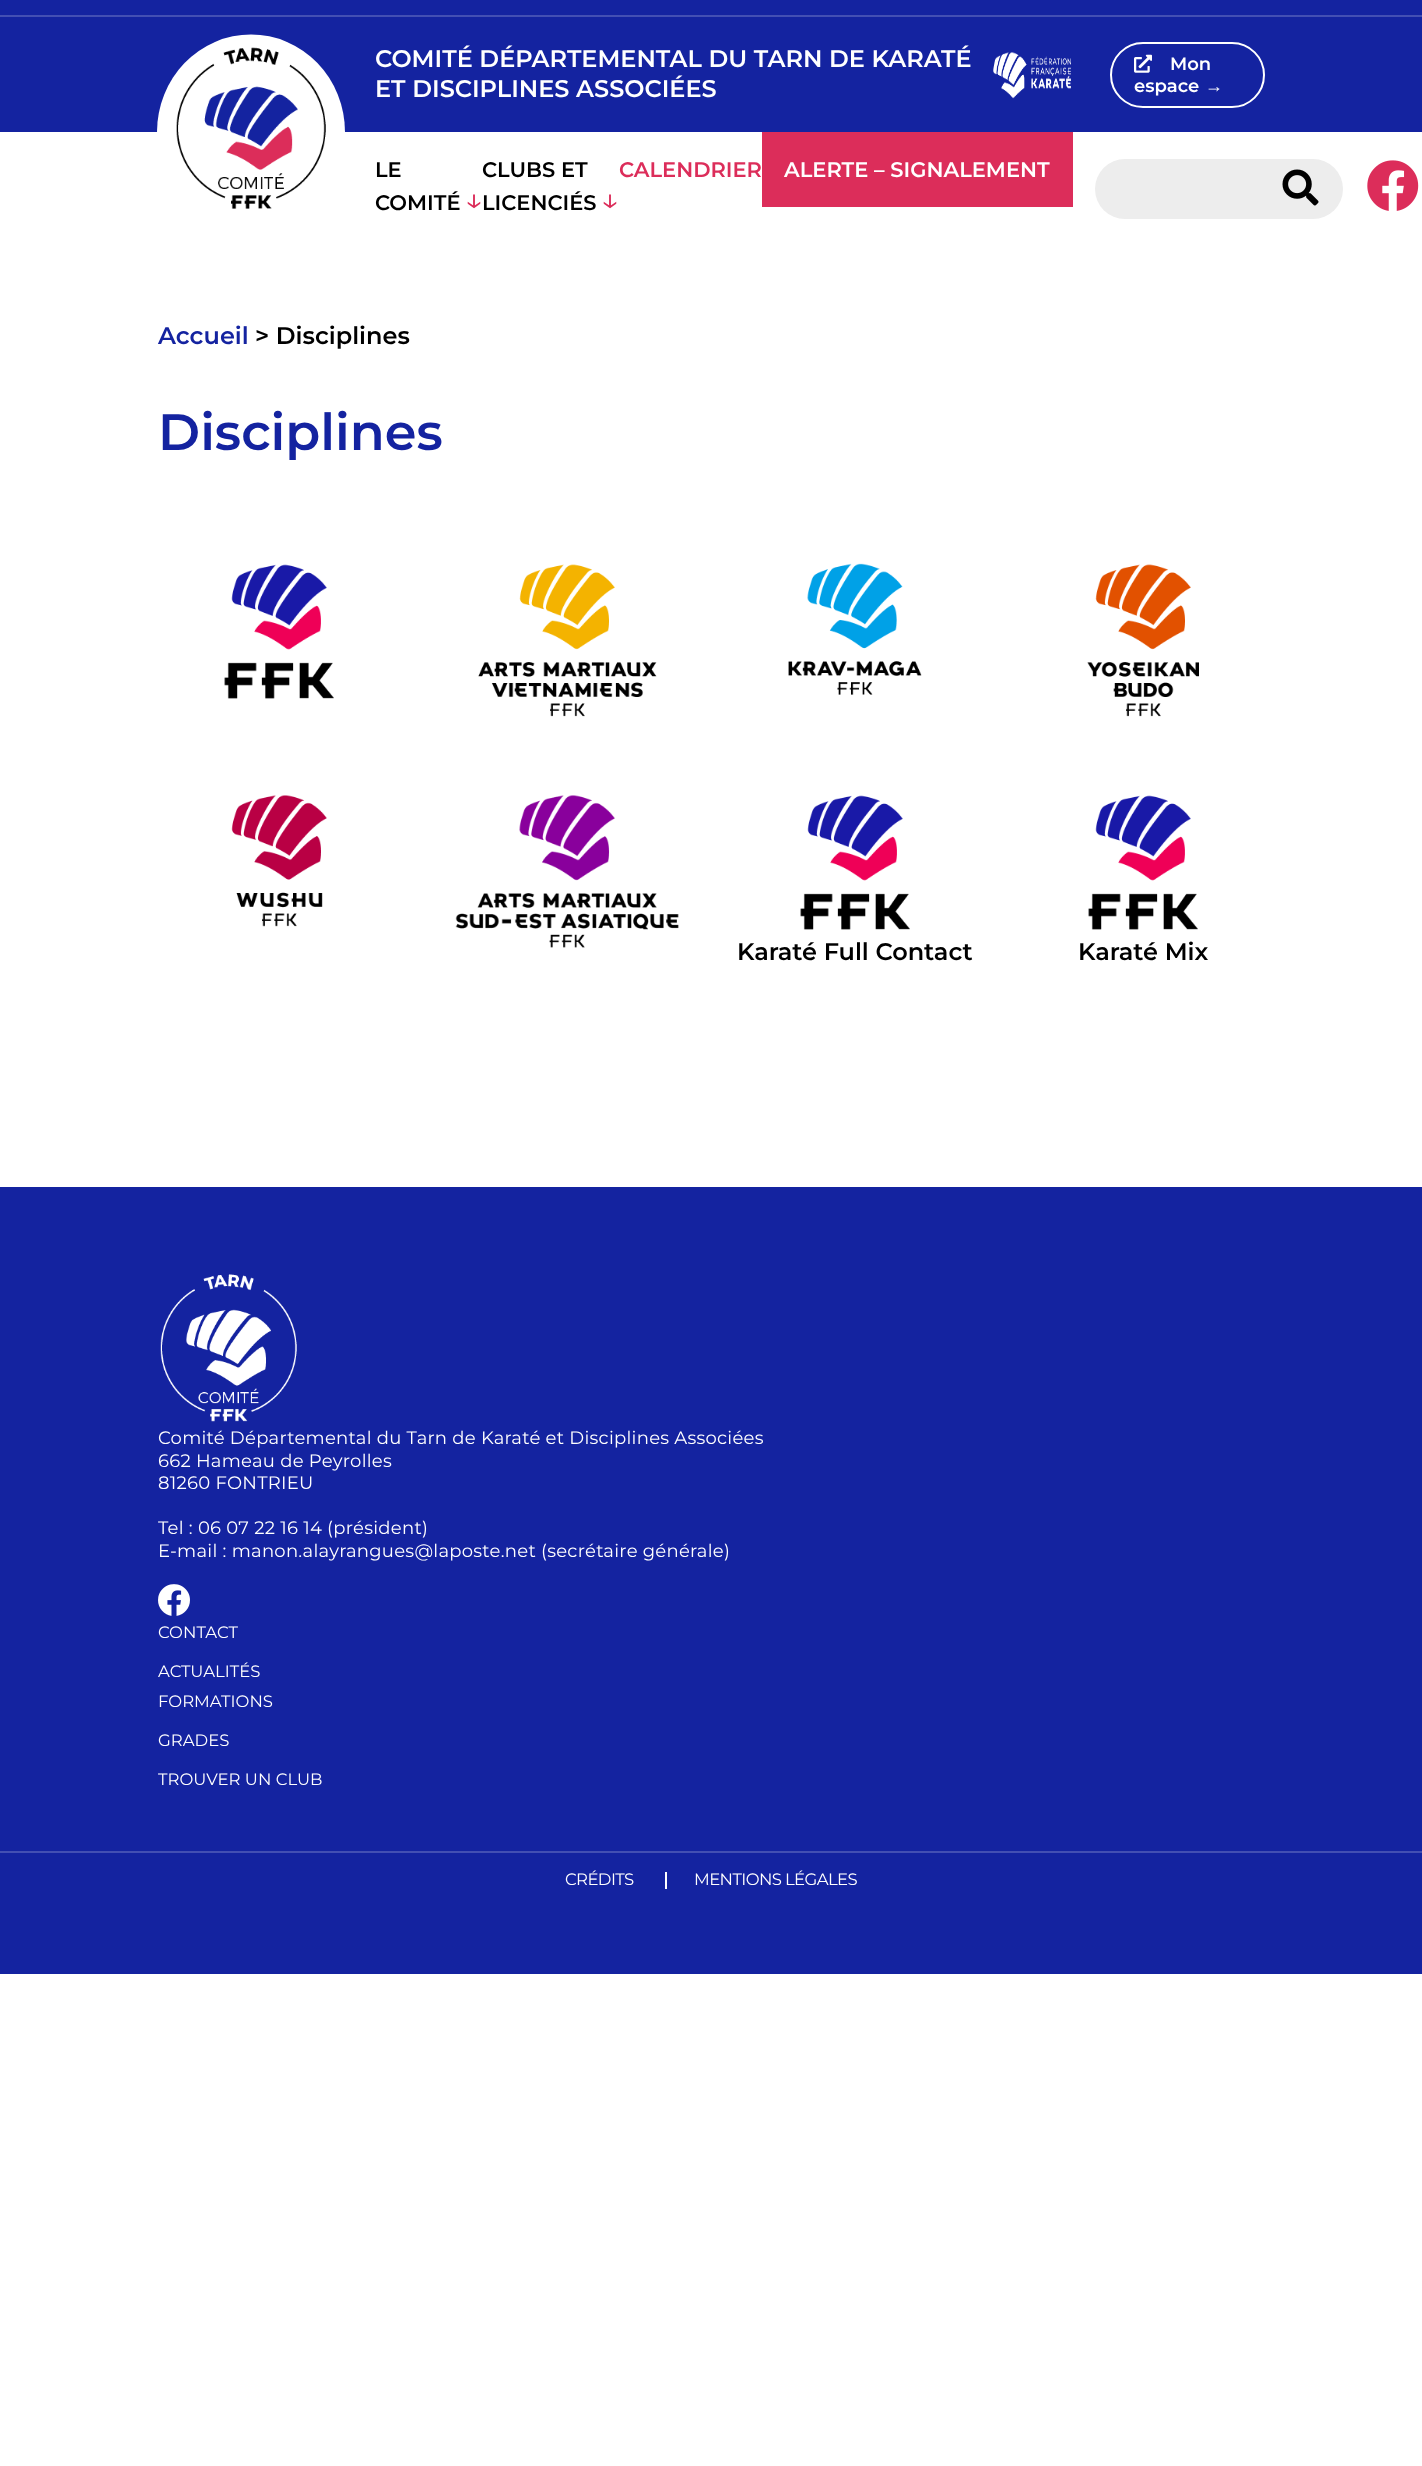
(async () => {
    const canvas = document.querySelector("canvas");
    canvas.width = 1422;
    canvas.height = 2466;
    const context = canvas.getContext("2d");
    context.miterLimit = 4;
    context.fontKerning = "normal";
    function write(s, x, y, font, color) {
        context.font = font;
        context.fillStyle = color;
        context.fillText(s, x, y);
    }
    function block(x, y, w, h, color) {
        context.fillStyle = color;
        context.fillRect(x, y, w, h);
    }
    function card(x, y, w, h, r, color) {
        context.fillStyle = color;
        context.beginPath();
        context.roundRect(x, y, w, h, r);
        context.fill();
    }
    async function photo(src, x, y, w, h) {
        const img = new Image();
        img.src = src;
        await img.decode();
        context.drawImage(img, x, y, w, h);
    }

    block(0, 0, 1422, 2466, "rgb(255, 255, 255)");
    block(0, 0, 1422, 132, "rgb(20, 35, 160)");
    block(0, 15, 1422, 2, "rgb(67, 79, 179)");
    context.fillStyle = "rgb(255, 255, 255)";
    context.beginPath();
    context.ellipse(251, 132, 94, 97.5, 0, 0, Math.PI * 2);
    context.fill();
    await photo("media/1.png", 176, 47, 150, 162);
    write("COMITÉ DÉPARTEMENTAL DU TARN DE KARATÉ", 375, 67, "600 24px Montserrat", "rgb(255, 255, 255)");
    write("ET DISCIPLINES ASSOCIÉES", 375, 97, "600 24px Montserrat", "rgb(255, 255, 255)");
    await photo("media/2.png", 993, 52, 78, 47);
    context.beginPath();
    context.roundRect(1111, 43, 153, 64, 32);
    context.strokeStyle = "rgb(255, 255, 255)";
    context.lineWidth = 2;
    context.stroke();
    await photo("media/3.png", 1134, 54, 18, 19);
    write("Mon", 1170, 70, "600 18px Montserrat", "rgb(255, 255, 255)");
    write("espace", 1134, 92, "600 18px Montserrat", "rgb(255, 255, 255)");
    write("→", 1205, 92, "bold 18px Liberation Sans", "rgb(255, 255, 255)");
    write("LE", 375, 177, "600 21px Montserrat", "rgb(0, 0, 0)");
    write("COMITÉ", 375, 210, "600 21px Montserrat", "rgb(0, 0, 0)");
    write("↓", 464, 210, "32px Montserrat", "rgb(220, 45, 90)");
    write("CLUBS ET", 482, 177, "600 21px Montserrat", "rgb(0, 0, 0)");
    write("LICENCIÉS", 482, 210, "600 21px Montserrat", "rgb(0, 0, 0)");
    write("↓", 600, 210, "32px Montserrat", "rgb(220, 45, 90)");
    write("CALENDRIER", 619, 177, "600 21px Montserrat", "rgb(220, 45, 90)");
    block(762, 132, 311, 75, "rgb(220, 45, 90)");
    write("ALERTE – SIGNALEMENT", 784, 177, "600 21px Montserrat", "rgb(255, 255, 255)");
    card(1095, 159, 248, 60, 30, "rgb(237, 237, 237)");
    await photo("media/4.png", 1282, 169, 37, 37);
    await photo("media/5.png", 1367, 160, 52, 51);
    write("Accueil", 158, 344, "600 24px Montserrat", "rgb(20, 35, 160)");
    write("> Disciplines", 255, 344, "600 24px Montserrat", "rgb(0, 0, 0)");
    write("Disciplines", 158, 450, "600 51px Montserrat", "rgb(20, 35, 160)");
    await photo("media/6.png", 224, 564, 110, 135);
    await photo("media/7.png", 478, 564, 179, 153);
    await photo("media/8.png", 788, 563, 134, 132);
    await photo("media/9.png", 1087, 564, 112, 153);
    await photo("media/10.png", 231, 795, 96, 132);
    await photo("media/11.png", 455, 795, 224, 153);
    await photo("media/6.png", 800, 795, 110, 135);
    write("Karaté Full Contact", 737, 960, "600 24px Montserrat", "rgb(0, 0, 0)");
    await photo("media/6.png", 1088, 795, 110, 135);
    write("Karaté Mix", 1078, 960, "600 24px Montserrat", "rgb(0, 0, 0)");
    block(0, 1187, 1422, 787, "rgb(20, 35, 160)");
    await photo("media/12.png", 160, 1274, 137, 148);
    context.letterSpacing = "0.27px";
    write("Comité Départemental du Tarn de Karaté et Disciplines Associées", 158, 1444, "18px Montserrat", "rgb(255, 255, 255)");
    write("662 Hameau de Peyrolles", 158, 1467, "18px Montserrat", "rgb(255, 255, 255)");
    write("81260 FONTRIEU", 158, 1489, "18px Montserrat", "rgb(255, 255, 255)");
    write("Tel : 06 07 22 16 14 (président)", 158, 1534, "18px Montserrat", "rgb(255, 255, 255)");
    write("E-mail : manon.alayrangues@laposte.net (secrétaire générale)", 158, 1557, "18px Montserrat", "rgb(255, 255, 255)");
    await photo("media/13.png", 158, 1584, 32, 32);
    context.letterSpacing = "0px";
    write("CONTACT", 158, 1638, "16.5px Montserrat", "rgb(255, 255, 255)");
    write("ACTUALITÉS", 158, 1677, "16.5px Montserrat", "rgb(255, 255, 255)");
    write("FORMATIONS", 158, 1707, "16.5px Montserrat", "rgb(255, 255, 255)");
    write("GRADES", 158, 1746, "16.5px Montserrat", "rgb(255, 255, 255)");
    write("TROUVER UN CLUB", 158, 1785, "16.5px Montserrat", "rgb(255, 255, 255)");
    block(0, 1851, 1422, 2, "rgb(67, 79, 179)");
    context.letterSpacing = "-0.6px";
    write("CRÉDITS", 565, 1885, "16.5px Montserrat", "rgb(255, 255, 255)");
    block(665, 1872, 2, 17, "rgb(255, 255, 255)");
    write("MENTIONS LÉGALES", 694, 1885, "16.5px Montserrat", "rgb(255, 255, 255)");
})();
